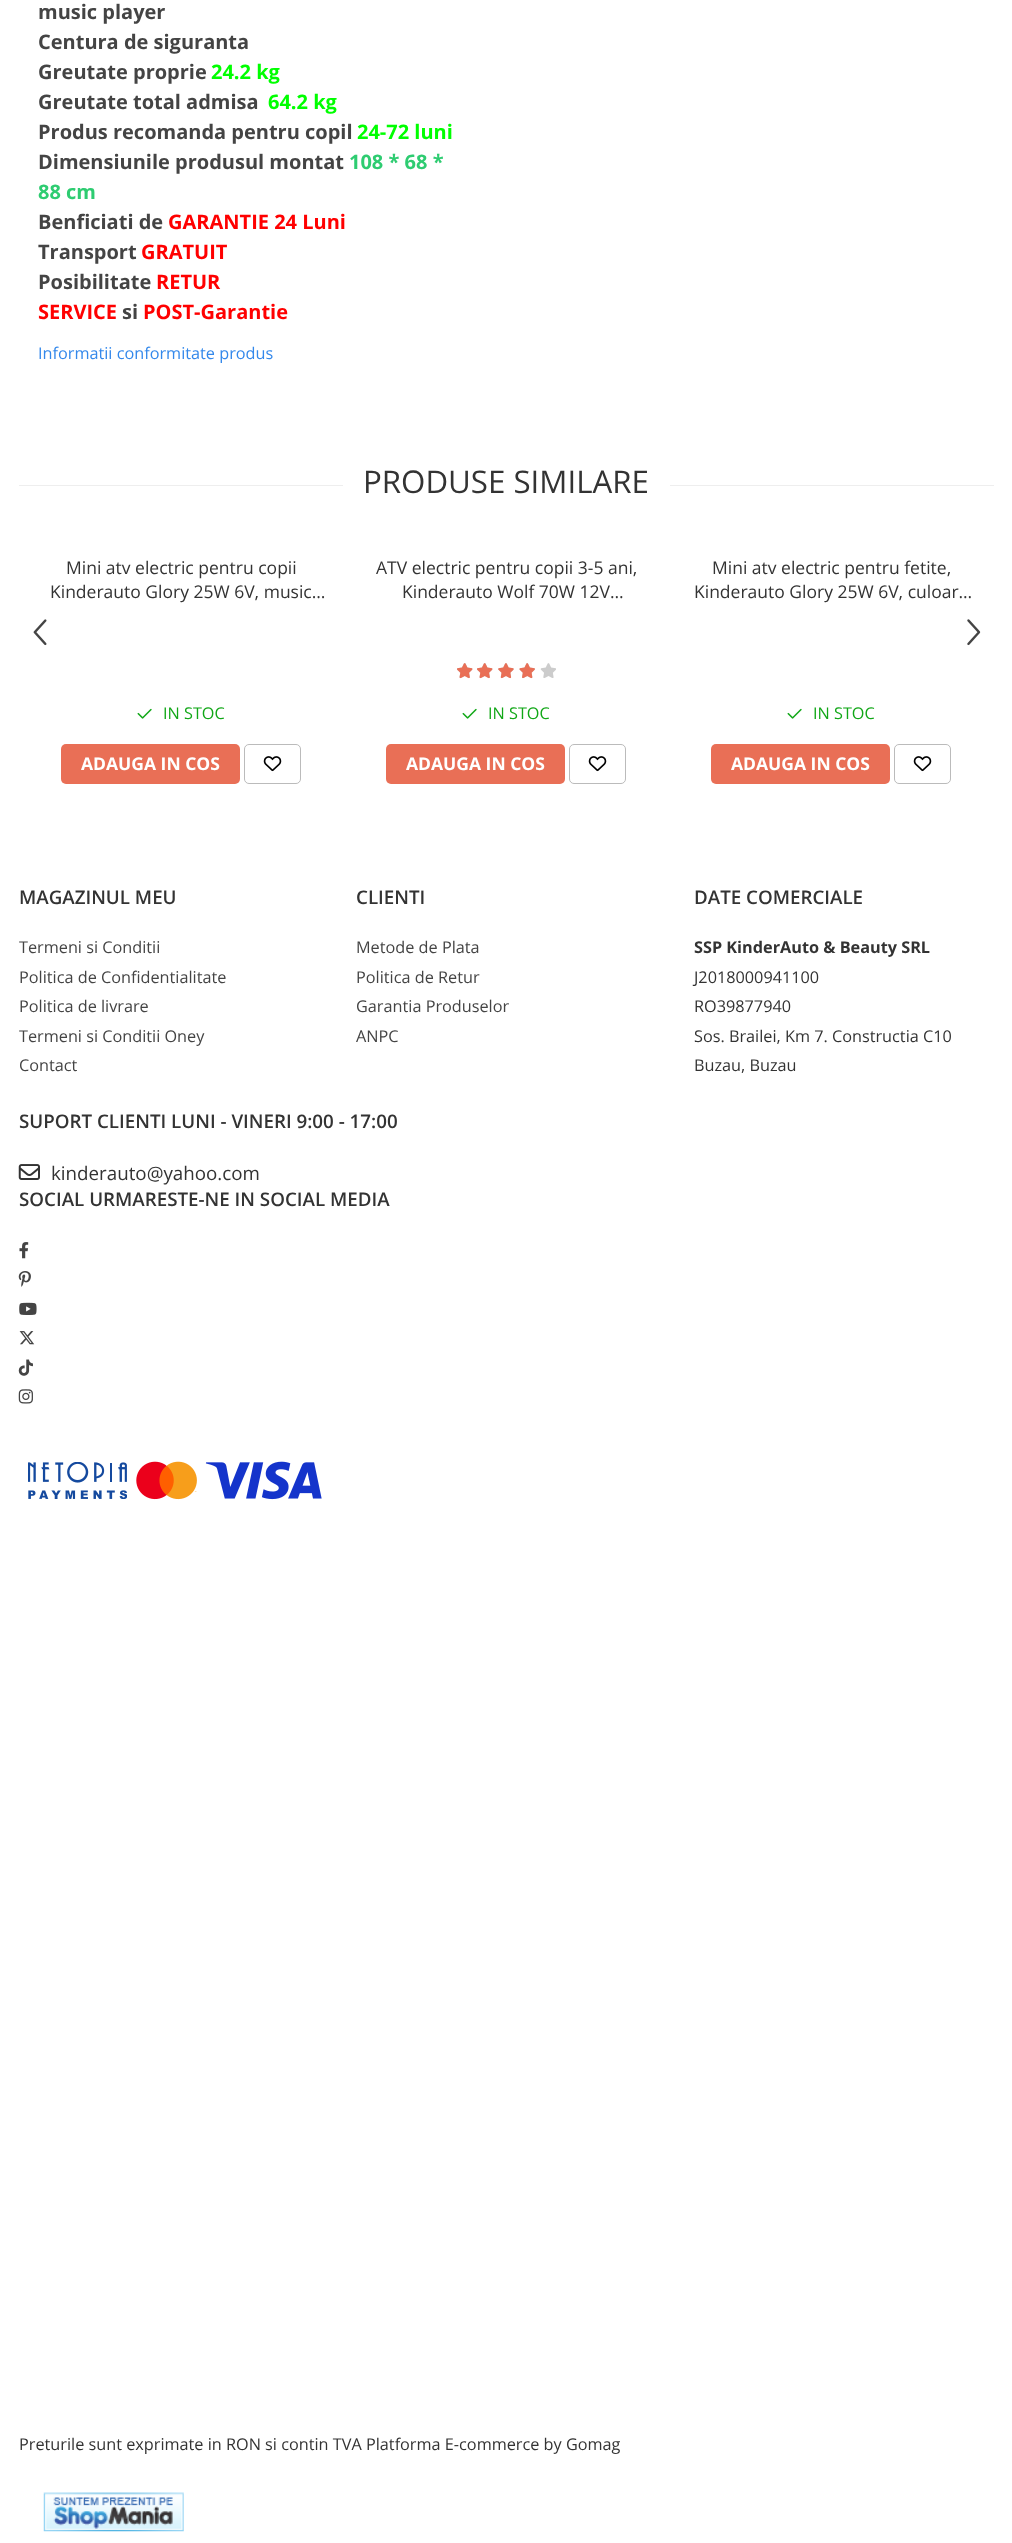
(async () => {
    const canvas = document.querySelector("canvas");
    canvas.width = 1012;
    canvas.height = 2543;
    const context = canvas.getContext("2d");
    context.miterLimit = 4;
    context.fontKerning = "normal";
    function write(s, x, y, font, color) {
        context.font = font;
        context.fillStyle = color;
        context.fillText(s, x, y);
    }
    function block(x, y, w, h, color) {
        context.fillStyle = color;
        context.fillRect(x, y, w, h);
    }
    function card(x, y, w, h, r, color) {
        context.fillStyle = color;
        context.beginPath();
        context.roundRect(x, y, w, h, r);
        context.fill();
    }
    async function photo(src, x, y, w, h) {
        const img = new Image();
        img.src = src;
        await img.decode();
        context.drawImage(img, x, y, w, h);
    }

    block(0, 0, 1012, 2543, "rgb(255, 255, 255)");
    write("music player", 38, 19, "bold 20px Open Sans", "rgb(68, 68, 68)");
    write("Centura de siguranta", 38, 49, "bold 20px Open Sans", "rgb(68, 68, 68)");
    write("Greutate proprie", 38, 79, "bold 20px Open Sans", "rgb(68, 68, 68)");
    write("24.2 kg", 211, 79, "bold 20px Open Sans", "rgb(0, 255, 0)");
    write("Greutate total admisa", 38, 109, "bold 20px Open Sans", "rgb(68, 68, 68)");
    write("64.2 kg", 268, 109, "bold 20px Open Sans", "rgb(0, 255, 0)");
    write("Produs recomanda pentru copil", 38, 139, "bold 20px Open Sans", "rgb(68, 68, 68)");
    write("24-72 luni", 357, 139, "bold 20px Open Sans", "rgb(0, 255, 0)");
    write("Dimensiunile produsul montat", 38, 169, "bold 20px Open Sans", "rgb(68, 68, 68)");
    write("108 * 68 *", 349, 169, "bold 20px Open Sans", "rgb(46, 204, 113)");
    write("88 cm", 38, 199, "bold 20px Open Sans", "rgb(46, 204, 113)");
    write("Benficiati de", 38, 229, "bold 20px Open Sans", "rgb(68, 68, 68)");
    write("GARANTIE 24 Luni", 168, 229, "bold 20px Open Sans", "rgb(255, 0, 0)");
    write("Transport", 38, 259, "bold 20px Open Sans", "rgb(68, 68, 68)");
    write("GRATUIT", 141, 259, "bold 20px Open Sans", "rgb(255, 0, 0)");
    write("Posibilitate", 38, 289, "bold 20px Open Sans", "rgb(68, 68, 68)");
    write("RETUR", 156, 289, "bold 20px Open Sans", "rgb(255, 0, 0)");
    write("SERVICE", 38, 319, "bold 20px Open Sans", "rgb(255, 0, 0)");
    write("si", 122, 319, "bold 20px Open Sans", "rgb(68, 68, 68)");
    write("POST-Garantie", 143, 319, "bold 20px Open Sans", "rgb(255, 0, 0)");
    write("Informatii conformitate produs", 38, 359, "16.25px Open Sans", "rgb(51, 136, 235)");
    block(19, 485, 975, 1, "rgb(238, 238, 238)");
    block(343, 485, 327, 1, "rgb(255, 255, 255)");
    write("PRODUSE SIMILARE", 363, 493, "31.25px Open Sans", "rgb(51, 51, 51)");
    write("Mini atv electric pentru copii", 66, 574, "17.5px Open Sans", "rgb(51, 51, 51)");
    write("Kinderauto Glory 25W 6V, music…", 50, 598, "17.5px Open Sans", "rgb(51, 51, 51)");
    await photo("media/1.png", 137, 708, 15, 11);
    write("IN STOC", 163, 719, "16.25px Open Sans", "rgb(17, 167, 23)");
    card(61, 744, 179, 40, 5, "rgb(233, 111, 86)");
    write("ADAUGA IN COS", 81, 770, "bold 17.5px Open Sans", "rgb(255, 255, 255)");
    context.beginPath();
    context.roundRect(244.5, 744.5, 56, 39, 4.5);
    context.strokeStyle = "rgb(187, 187, 187)";
    context.stroke();
    await photo("media/2.png", 263, 756, 19, 16);
    write("ATV electric pentru copii 3-5 ani,", 376, 574, "17.5px Open Sans", "rgb(51, 51, 51)");
    write("Kinderauto Wolf 70W 12V…", 402, 598, "17.5px Open Sans", "rgb(51, 51, 51)");
    await photo("media/3.png", 457, 663, 16, 15);
    await photo("media/4.png", 457, 663, 16, 16);
    await photo("media/3.png", 477, 663, 16, 15);
    await photo("media/4.png", 477, 663, 16, 16);
    await photo("media/7.png", 498, 663, 16, 15);
    await photo("media/5.png", 498, 663, 16, 16);
    await photo("media/8.png", 519, 663, 16, 15);
    await photo("media/6.png", 519, 663, 16, 16);
    await photo("media/9.png", 540, 663, 16, 15);
    await photo("media/1.png", 462, 708, 15, 11);
    write("IN STOC", 488, 719, "16.25px Open Sans", "rgb(17, 167, 23)");
    card(386, 744, 179, 40, 5, "rgb(233, 111, 86)");
    write("ADAUGA IN COS", 406, 770, "bold 17.5px Open Sans", "rgb(255, 255, 255)");
    context.beginPath();
    context.roundRect(569.5, 744.5, 56, 39, 4.5);
    context.stroke();
    await photo("media/2.png", 588, 756, 19, 16);
    write("Mini atv electric pentru fetite,", 712, 574, "17.5px Open Sans", "rgb(51, 51, 51)");
    write("Kinderauto Glory 25W 6V, culoar…", 694, 598, "17.5px Open Sans", "rgb(51, 51, 51)");
    await photo("media/1.png", 787, 708, 15, 11);
    write("IN STOC", 813, 719, "16.25px Open Sans", "rgb(17, 167, 23)");
    card(711, 744, 179, 40, 5, "rgb(233, 111, 86)");
    write("ADAUGA IN COS", 731, 770, "bold 17.5px Open Sans", "rgb(255, 255, 255)");
    context.beginPath();
    context.roundRect(894.5, 744.5, 56, 39, 4.5);
    context.stroke();
    await photo("media/2.png", 913, 756, 19, 16);
    await photo("media/10.png", 33, 619, 14, 27);
    await photo("media/11.png", 967, 619, 14, 27);
    write("MAGAZINUL MEU", 19, 904, "600 18.75px Open Sans", "rgb(51, 51, 51)");
    write("Termeni si Conditii", 19, 953, "16.25px Open Sans", "rgb(68, 68, 68)");
    write("Politica de Confidentialitate", 19, 983, "16.25px Open Sans", "rgb(68, 68, 68)");
    write("Politica de livrare", 19, 1012, "16.25px Open Sans", "rgb(68, 68, 68)");
    write("Termeni si Conditii Oney", 19, 1042, "16.25px Open Sans", "rgb(68, 68, 68)");
    write("Contact", 19, 1071, "16.25px Open Sans", "rgb(68, 68, 68)");
    write("CLIENTI", 356, 904, "600 18.75px Open Sans", "rgb(51, 51, 51)");
    write("Metode de Plata", 356, 953, "16.25px Open Sans", "rgb(68, 68, 68)");
    write("Politica de Retur", 356, 983, "16.25px Open Sans", "rgb(68, 68, 68)");
    write("Garantia Produselor", 356, 1012, "16.25px Open Sans", "rgb(68, 68, 68)");
    write("ANPC", 356, 1042, "16.25px Open Sans", "rgb(68, 68, 68)");
    write("DATE COMERCIALE", 694, 904, "600 18.75px Open Sans", "rgb(51, 51, 51)");
    write("SSP KinderAuto & Beauty SRL", 694, 953, "bold 16.25px Open Sans", "rgb(51, 51, 51)");
    write("J2018000941100", 694, 983, "16.25px Open Sans", "rgb(51, 51, 51)");
    write("RO39877940", 694, 1012, "16.25px Open Sans", "rgb(51, 51, 51)");
    write("Sos. Brailei, Km 7. Constructia C10", 694, 1042, "16.25px Open Sans", "rgb(51, 51, 51)");
    write("Buzau, Buzau", 694, 1071, "16.25px Open Sans", "rgb(51, 51, 51)");
    write("SUPORT CLIENTI LUNI - VINERI 9:00 - 17:00", 19, 1128, "600 18.75px Open Sans", "rgb(51, 51, 51)");
    await photo("media/12.png", 18, 1164, 22, 16);
    write("kinderauto@yahoo.com", 51, 1180, "18.75px Open Sans", "rgb(51, 51, 51)");
    write("SOCIAL URMARESTE-NE IN SOCIAL MEDIA", 19, 1206, "600 18.75px Open Sans", "rgb(51, 51, 51)");
    await photo("media/13.png", 19, 1242, 10, 17);
    await photo("media/14.png", 18, 1271, 13, 16);
    await photo("media/15.png", 19, 1302, 18, 13);
    await photo("media/16.png", 19, 1331, 16, 14);
    await photo("media/17.png", 18, 1359, 15, 17);
    await photo("media/18.png", 18, 1389, 15, 15);
    await photo("media/19.png", 28, 1461, 294, 39);
    write("Preturile sunt exprimate in RON si contin TVA Platforma E-commerce by Gomag", 19, 2450, "16.25px Open Sans", "rgb(51, 51, 51)");
    await photo("media/20.png", 43, 2492, 141, 40);
})();
